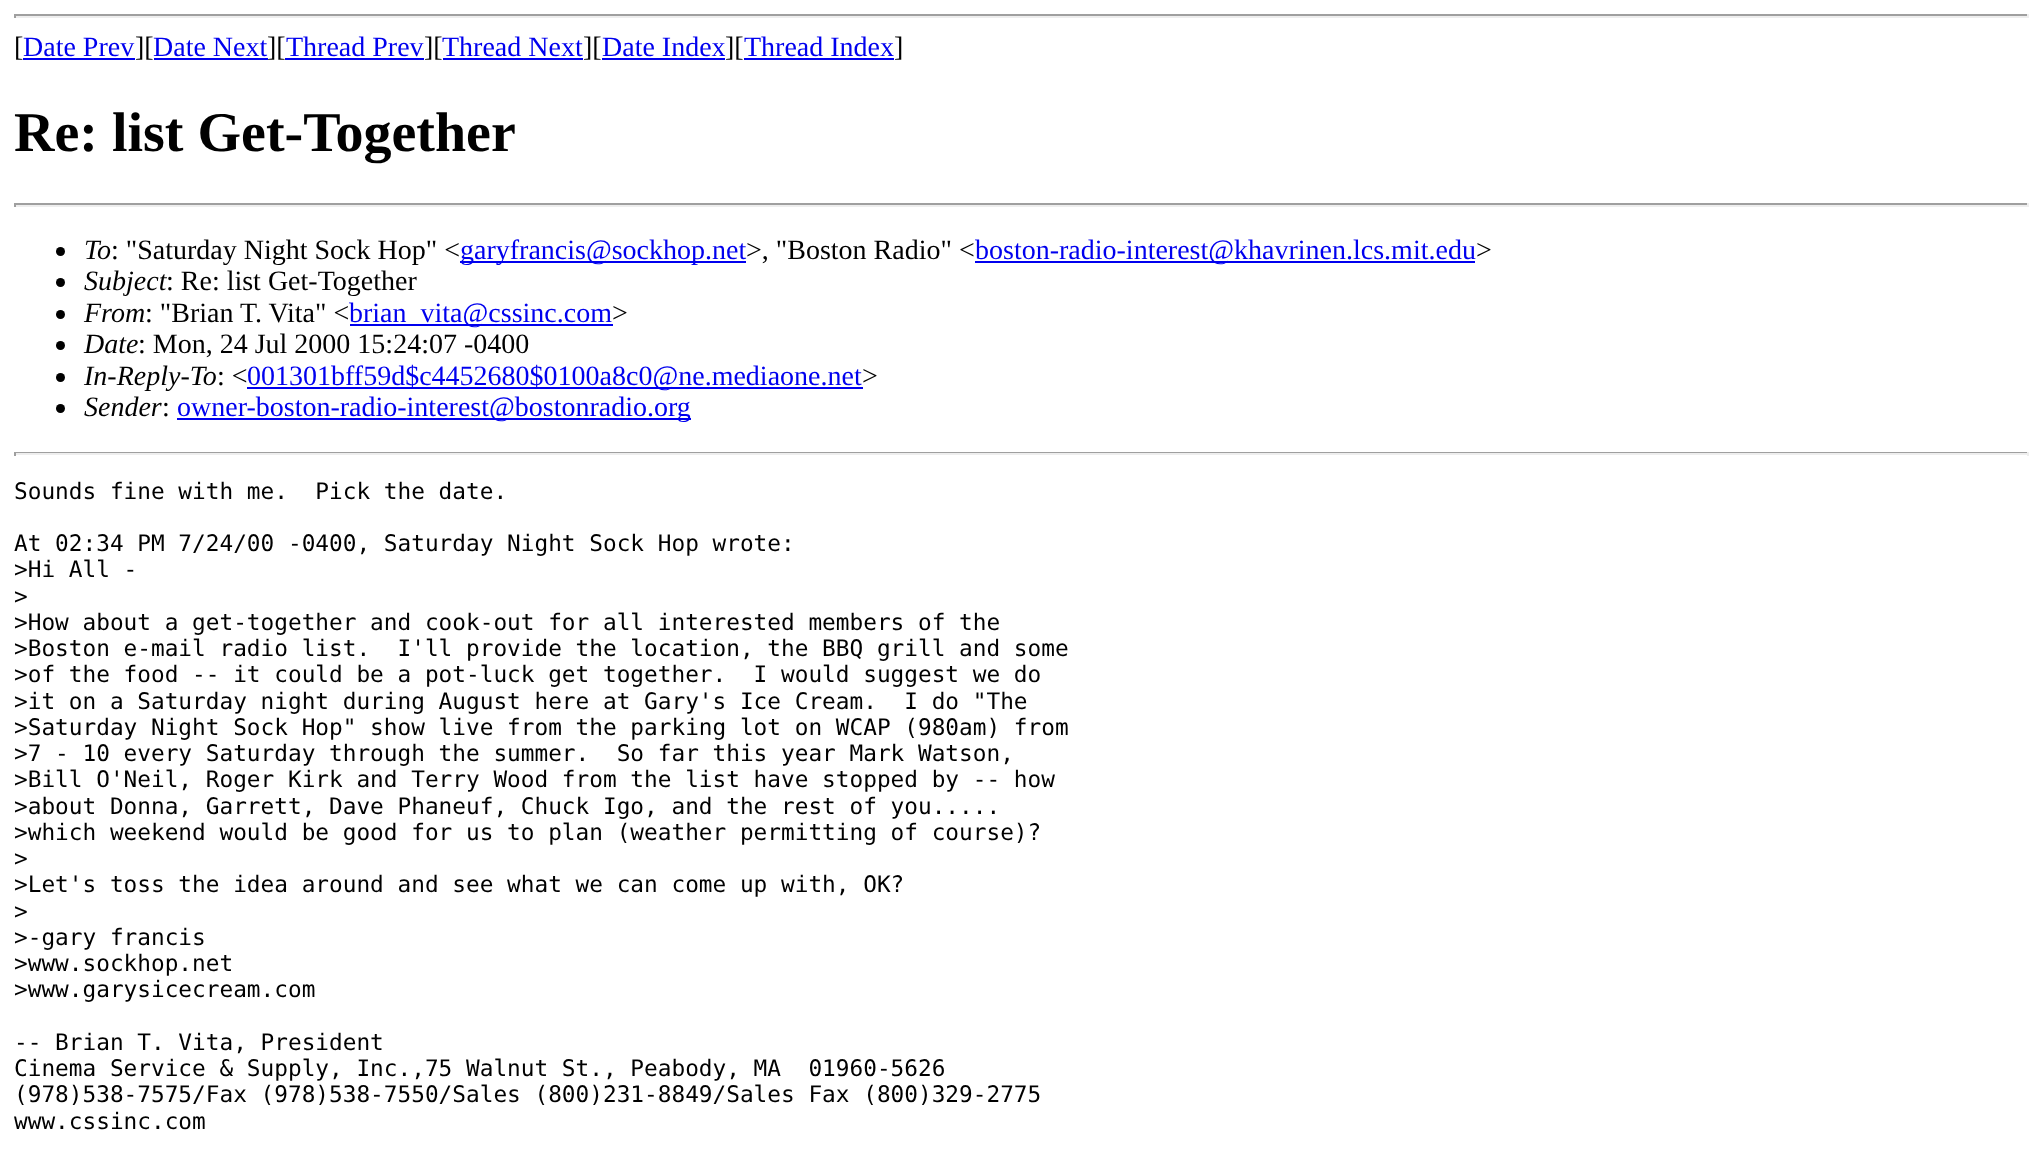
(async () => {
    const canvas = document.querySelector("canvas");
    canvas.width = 2042;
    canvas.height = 1151;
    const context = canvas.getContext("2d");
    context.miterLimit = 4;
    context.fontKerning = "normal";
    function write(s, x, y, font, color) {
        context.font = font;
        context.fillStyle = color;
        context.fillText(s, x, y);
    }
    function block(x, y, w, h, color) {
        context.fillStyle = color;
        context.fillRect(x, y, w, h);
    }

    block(0, 0, 2042, 1151, "rgb(255, 255, 255)");
    block(14, 14, 2014, 2, "rgb(159, 159, 159)");
    block(2027, 14, 2, 4, "rgb(238, 238, 238)");
    block(14, 16, 2014, 2, "rgb(238, 238, 238)");
    block(14, 14, 2, 4, "rgb(159, 159, 159)");
    write("[", 14, 56, "28px Liberation Serif", "rgb(0, 0, 0)");
    write("Date Prev", 23, 56, "28px Liberation Serif", "rgb(0, 0, 238)");
    block(23, 58, 112, 2, "rgb(0, 0, 238)");
    write("][", 135, 56, "28px Liberation Serif", "rgb(0, 0, 0)");
    write("Date Next", 153, 56, "28px Liberation Serif", "rgb(0, 0, 238)");
    block(154, 58, 114, 2, "rgb(0, 0, 238)");
    write("][", 267, 56, "28px Liberation Serif", "rgb(0, 0, 0)");
    write("Thread Prev", 286, 56, "28px Liberation Serif", "rgb(0, 0, 238)");
    block(285, 58, 139, 2, "rgb(0, 0, 238)");
    write("][", 424, 56, "28px Liberation Serif", "rgb(0, 0, 0)");
    write("Thread Next", 442, 56, "28px Liberation Serif", "rgb(0, 0, 238)");
    block(443, 58, 140, 2, "rgb(0, 0, 238)");
    write("][", 583, 56, "28px Liberation Serif", "rgb(0, 0, 0)");
    write("Date Index", 602, 56, "28px Liberation Serif", "rgb(0, 0, 238)");
    block(602, 58, 123, 2, "rgb(0, 0, 238)");
    write("][", 725, 56, "28px Liberation Serif", "rgb(0, 0, 0)");
    write("Thread Index", 744, 56, "28px Liberation Serif", "rgb(0, 0, 238)");
    block(744, 58, 150, 2, "rgb(0, 0, 238)");
    write("]", 894, 56, "28px Liberation Serif", "rgb(0, 0, 0)");
    write("Re: list Get-Together", 14, 151, "bold 56px Liberation Serif", "rgb(0, 0, 0)");
    block(14, 203, 2014, 2, "rgb(159, 159, 159)");
    block(2027, 203, 2, 4, "rgb(238, 238, 238)");
    block(14, 205, 2014, 2, "rgb(238, 238, 238)");
    block(14, 203, 2, 4, "rgb(159, 159, 159)");
    context.fillStyle = "rgb(0, 0, 0)";
    context.beginPath();
    context.arc(60.5, 251.5, 4.5, 0, Math.PI * 2);
    context.fill();
    write("To", 84, 259, "italic 28px Liberation Serif", "rgb(0, 0, 0)");
    write(": \"Saturday Night Sock Hop\" <", 111, 259, "28px Liberation Serif", "rgb(0, 0, 0)");
    block(460, 261, 286, 2, "rgb(0, 0, 238)");
    write("garyfrancis@sockhop.net", 460, 259, "28px Liberation Serif", "rgb(0, 0, 238)");
    write(">, \"Boston Radio\" <", 746, 259, "28px Liberation Serif", "rgb(0, 0, 0)");
    block(975, 261, 500, 2, "rgb(0, 0, 238)");
    write("boston-radio-interest@khavrinen.lcs.mit.edu", 975, 259, "28px Liberation Serif", "rgb(0, 0, 238)");
    write(">", 1476, 259, "28px Liberation Serif", "rgb(0, 0, 0)");
    context.beginPath();
    context.arc(60.5, 282.5, 4.5, 0, Math.PI * 2);
    context.fill();
    write("Subject", 84, 290, "italic 28px Liberation Serif", "rgb(0, 0, 0)");
    write(": Re: list Get-Together", 166, 290, "28px Liberation Serif", "rgb(0, 0, 0)");
    context.beginPath();
    context.arc(60.5, 314.5, 4.5, 0, Math.PI * 2);
    context.fill();
    write("From", 84, 322, "italic 28px Liberation Serif", "rgb(0, 0, 0)");
    write(": \"Brian T. Vita\" <", 145, 322, "28px Liberation Serif", "rgb(0, 0, 0)");
    block(350, 324, 263, 2, "rgb(0, 0, 238)");
    write("brian_vita@cssinc.com", 349, 322, "28px Liberation Serif", "rgb(0, 0, 238)");
    write(">", 612, 322, "28px Liberation Serif", "rgb(0, 0, 0)");
    context.beginPath();
    context.arc(60.5, 345.5, 4.5, 0, Math.PI * 2);
    context.fill();
    write("Date", 84, 353, "italic 28px Liberation Serif", "rgb(0, 0, 0)");
    write(": Mon, 24 Jul 2000 15:24:07 -0400", 138, 353, "28px Liberation Serif", "rgb(0, 0, 0)");
    context.beginPath();
    context.arc(60.5, 377.5, 4.5, 0, Math.PI * 2);
    context.fill();
    write("In-Reply-To", 84, 385, "italic 28px Liberation Serif", "rgb(0, 0, 0)");
    write(": <", 217, 385, "28px Liberation Serif", "rgb(0, 0, 0)");
    block(247, 387, 616, 2, "rgb(0, 0, 238)");
    write("001301bff59d$c4452680$0100a8c0@ne.mediaone.net", 247, 385, "28px Liberation Serif", "rgb(0, 0, 238)");
    write(">", 862, 385, "28px Liberation Serif", "rgb(0, 0, 0)");
    context.beginPath();
    context.arc(60.5, 408.5, 4.5, 0, Math.PI * 2);
    context.fill();
    write("Sender", 84, 416, "italic 28px Liberation Serif", "rgb(0, 0, 0)");
    write(":", 162, 416, "28px Liberation Serif", "rgb(0, 0, 0)");
    block(177, 418, 514, 2, "rgb(0, 0, 238)");
    write("owner-boston-radio-interest@bostonradio.org", 177, 416, "28px Liberation Serif", "rgb(0, 0, 238)");
    block(14, 452, 2014, 1, "rgb(159, 159, 159)");
    block(2027, 452, 2, 4, "rgb(238, 238, 238)");
    block(14, 453, 2014, 2, "rgb(238, 238, 238)");
    block(14, 452, 2, 4, "rgb(159, 159, 159)");
    write("Sounds fine with me.  Pick the date.", 14, 499, "22.75px DejaVu Sans Mono", "rgb(0, 0, 0)");
    write("At 02:34 PM 7/24/00 -0400, Saturday Night Sock Hop wrote:", 14, 551, "22.75px DejaVu Sans Mono", "rgb(0, 0, 0)");
    write(">Hi All -", 14, 577, "22.75px DejaVu Sans Mono", "rgb(0, 0, 0)");
    write(">", 14, 604, "22.75px DejaVu Sans Mono", "rgb(0, 0, 0)");
    write(">How about a get-together and cook-out for all interested members of the", 14, 630, "22.75px DejaVu Sans Mono", "rgb(0, 0, 0)");
    write(">Boston e-mail radio list.  I'll provide the location, the BBQ grill and some", 14, 656, "22.75px DejaVu Sans Mono", "rgb(0, 0, 0)");
    write(">of the food -- it could be a pot-luck get together.  I would suggest we do", 14, 682, "22.75px DejaVu Sans Mono", "rgb(0, 0, 0)");
    write(">it on a Saturday night during August here at Gary's Ice Cream.  I do \"The", 14, 709, "22.75px DejaVu Sans Mono", "rgb(0, 0, 0)");
    write(">Saturday Night Sock Hop\" show live from the parking lot on WCAP (980am) from", 14, 735, "22.75px DejaVu Sans Mono", "rgb(0, 0, 0)");
    write(">7 - 10 every Saturday through the summer.  So far this year Mark Watson,", 14, 761, "22.75px DejaVu Sans Mono", "rgb(0, 0, 0)");
    write(">Bill O'Neil, Roger Kirk and Terry Wood from the list have stopped by -- how", 14, 787, "22.75px DejaVu Sans Mono", "rgb(0, 0, 0)");
    write(">about Donna, Garrett, Dave Phaneuf, Chuck Igo, and the rest of you.....", 14, 814, "22.75px DejaVu Sans Mono", "rgb(0, 0, 0)");
    write(">which weekend would be good for us to plan (weather permitting of course)?", 14, 840, "22.75px DejaVu Sans Mono", "rgb(0, 0, 0)");
    write(">", 14, 866, "22.75px DejaVu Sans Mono", "rgb(0, 0, 0)");
    write(">Let's toss the idea around and see what we can come up with, OK?", 14, 892, "22.75px DejaVu Sans Mono", "rgb(0, 0, 0)");
    write(">", 14, 919, "22.75px DejaVu Sans Mono", "rgb(0, 0, 0)");
    write(">-gary francis", 14, 945, "22.75px DejaVu Sans Mono", "rgb(0, 0, 0)");
    write(">www.sockhop.net", 14, 971, "22.75px DejaVu Sans Mono", "rgb(0, 0, 0)");
    write(">www.garysicecream.com", 14, 997, "22.75px DejaVu Sans Mono", "rgb(0, 0, 0)");
    write("-- Brian T. Vita, President", 14, 1050, "22.75px DejaVu Sans Mono", "rgb(0, 0, 0)");
    write("Cinema Service & Supply, Inc.,75 Walnut St., Peabody, MA  01960-5626", 14, 1076, "22.75px DejaVu Sans Mono", "rgb(0, 0, 0)");
    write("(978)538-7575/Fax (978)538-7550/Sales (800)231-8849/Sales Fax (800)329-2775", 14, 1102, "22.75px DejaVu Sans Mono", "rgb(0, 0, 0)");
    write("www.cssinc.com", 14, 1129, "22.75px DejaVu Sans Mono", "rgb(0, 0, 0)");
})();
